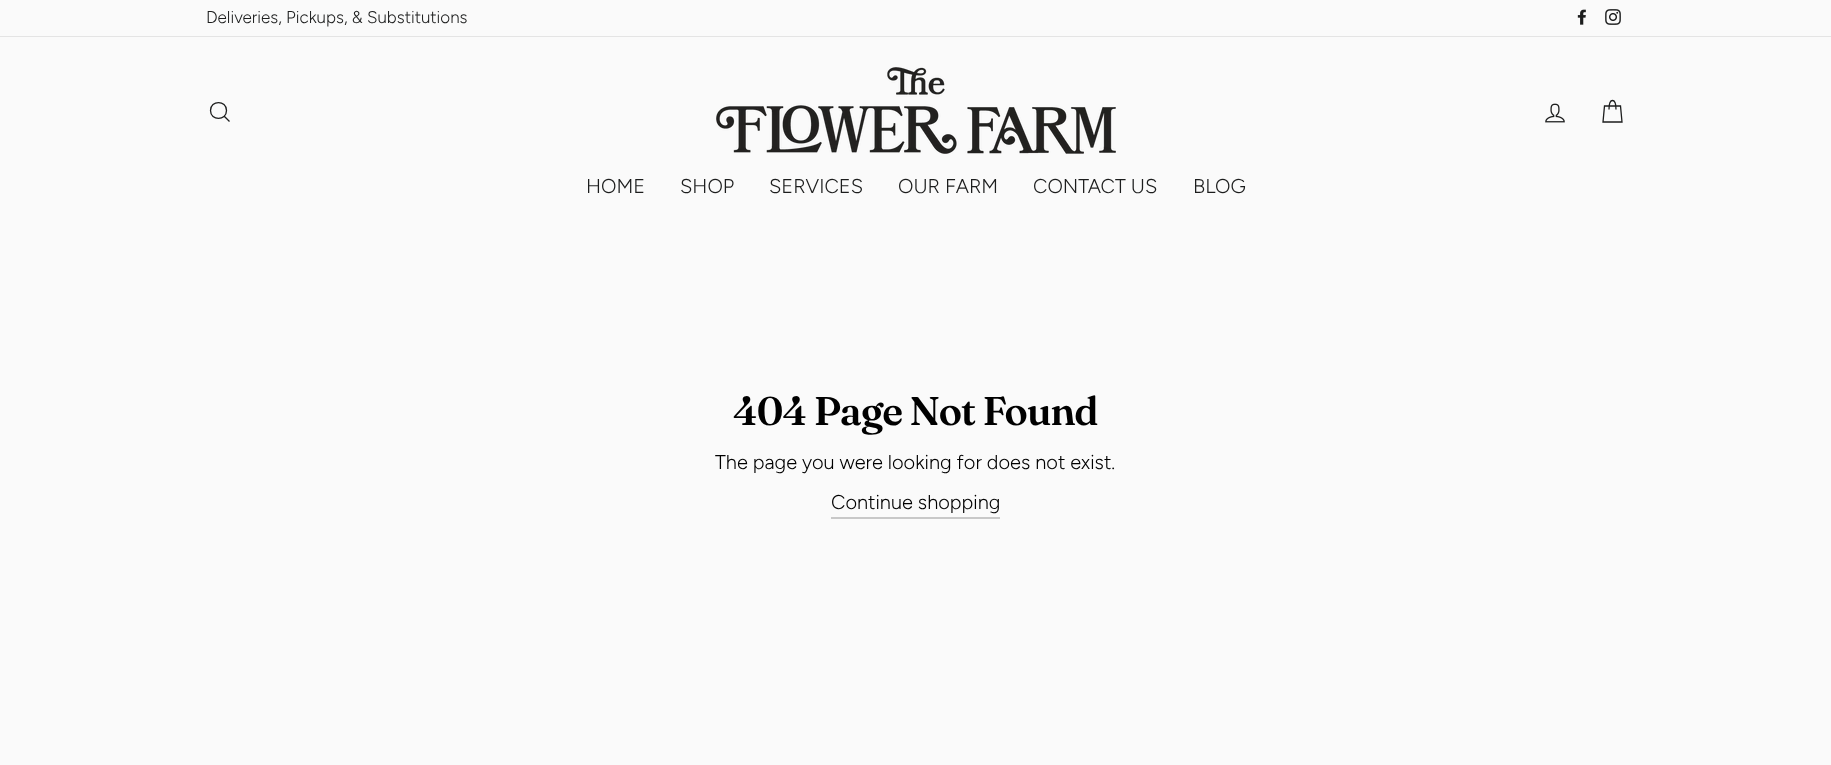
(async () => {
    const canvas = document.querySelector("canvas");
    canvas.width = 1831;
    canvas.height = 765;
    const context = canvas.getContext("2d");
    context.miterLimit = 4;
    context.fontKerning = "normal";
    function write(s, x, y, font, color) {
        context.font = font;
        context.fillStyle = color;
        context.fillText(s, x, y);
    }
    function block(x, y, w, h, color) {
        context.fillStyle = color;
        context.fillRect(x, y, w, h);
    }
    async function photo(src, x, y, w, h) {
        const img = new Image();
        img.src = src;
        await img.decode();
        context.drawImage(img, x, y, w, h);
    }

    block(0, 0, 1831, 765, "rgb(250, 250, 250)");
    write("Deliveries, Pickups, & Substitutions", 206, 23, "300 17px Figtree", "rgb(28, 29, 29)");
    await photo("media/1.png", 1577, 9, 9, 16);
    await photo("media/2.png", 1605, 9, 16, 16);
    block(0, 36, 1831, 1, "rgb(228, 228, 228)");
    context.beginPath();
    context.moveTo(226.5, 110.5);
    context.bezierCurveTo(226.5, 121, 210.5, 121, 210.5, 110.5);
    context.bezierCurveTo(210.5, 100, 226.5, 100, 226.5, 110.5);
    context.closePath();
    context.moveTo(229.5, 121.5);
    context.lineTo(224.5, 116.5);
    context.strokeStyle = "rgb(28, 29, 29)";
    context.lineWidth = 1.3;
    context.stroke();
    await photo("media/3.png", 716, 67, 400, 87);
    await photo("media/4.png", 1545, 103, 20, 20);
    context.beginPath();
    context.moveTo(1609, 109.5);
    context.bezierCurveTo(1609, 97.5, 1616, 97.5, 1616, 109.5);
    context.moveTo(1604.5, 106);
    context.lineTo(1620.5, 106);
    context.lineTo(1622, 122);
    context.lineTo(1603, 122);
    context.closePath();
    context.stroke();
    write("HOME", 586, 193, "300 20px Figtree", "rgb(28, 29, 29)");
    write("SHOP", 680, 193, "300 20px Figtree", "rgb(28, 29, 29)");
    write("SERVICES", 769, 193, "300 20px Figtree", "rgb(28, 29, 29)");
    write("OUR FARM", 898, 193, "300 20px Figtree", "rgb(28, 29, 29)");
    write("CONTACT US", 1033, 193, "300 20px Figtree", "rgb(28, 29, 29)");
    write("BLOG", 1193, 193, "300 20px Figtree", "rgb(28, 29, 29)");
    context.letterSpacing = "-1px";
    write("404 Page Not Found", 733, 425, "600 40px Fraunces", "rgb(0, 0, 0)");
    context.letterSpacing = "0px";
    write("The page you were looking for does not exist.", 715, 469, "300 20px Figtree", "rgb(0, 0, 0)");
    block(831, 517, 169, 2, "rgb(200, 200, 200)");
    write("Continue shopping", 831, 509, "300 20px Figtree", "rgb(0, 0, 0)");
})();
